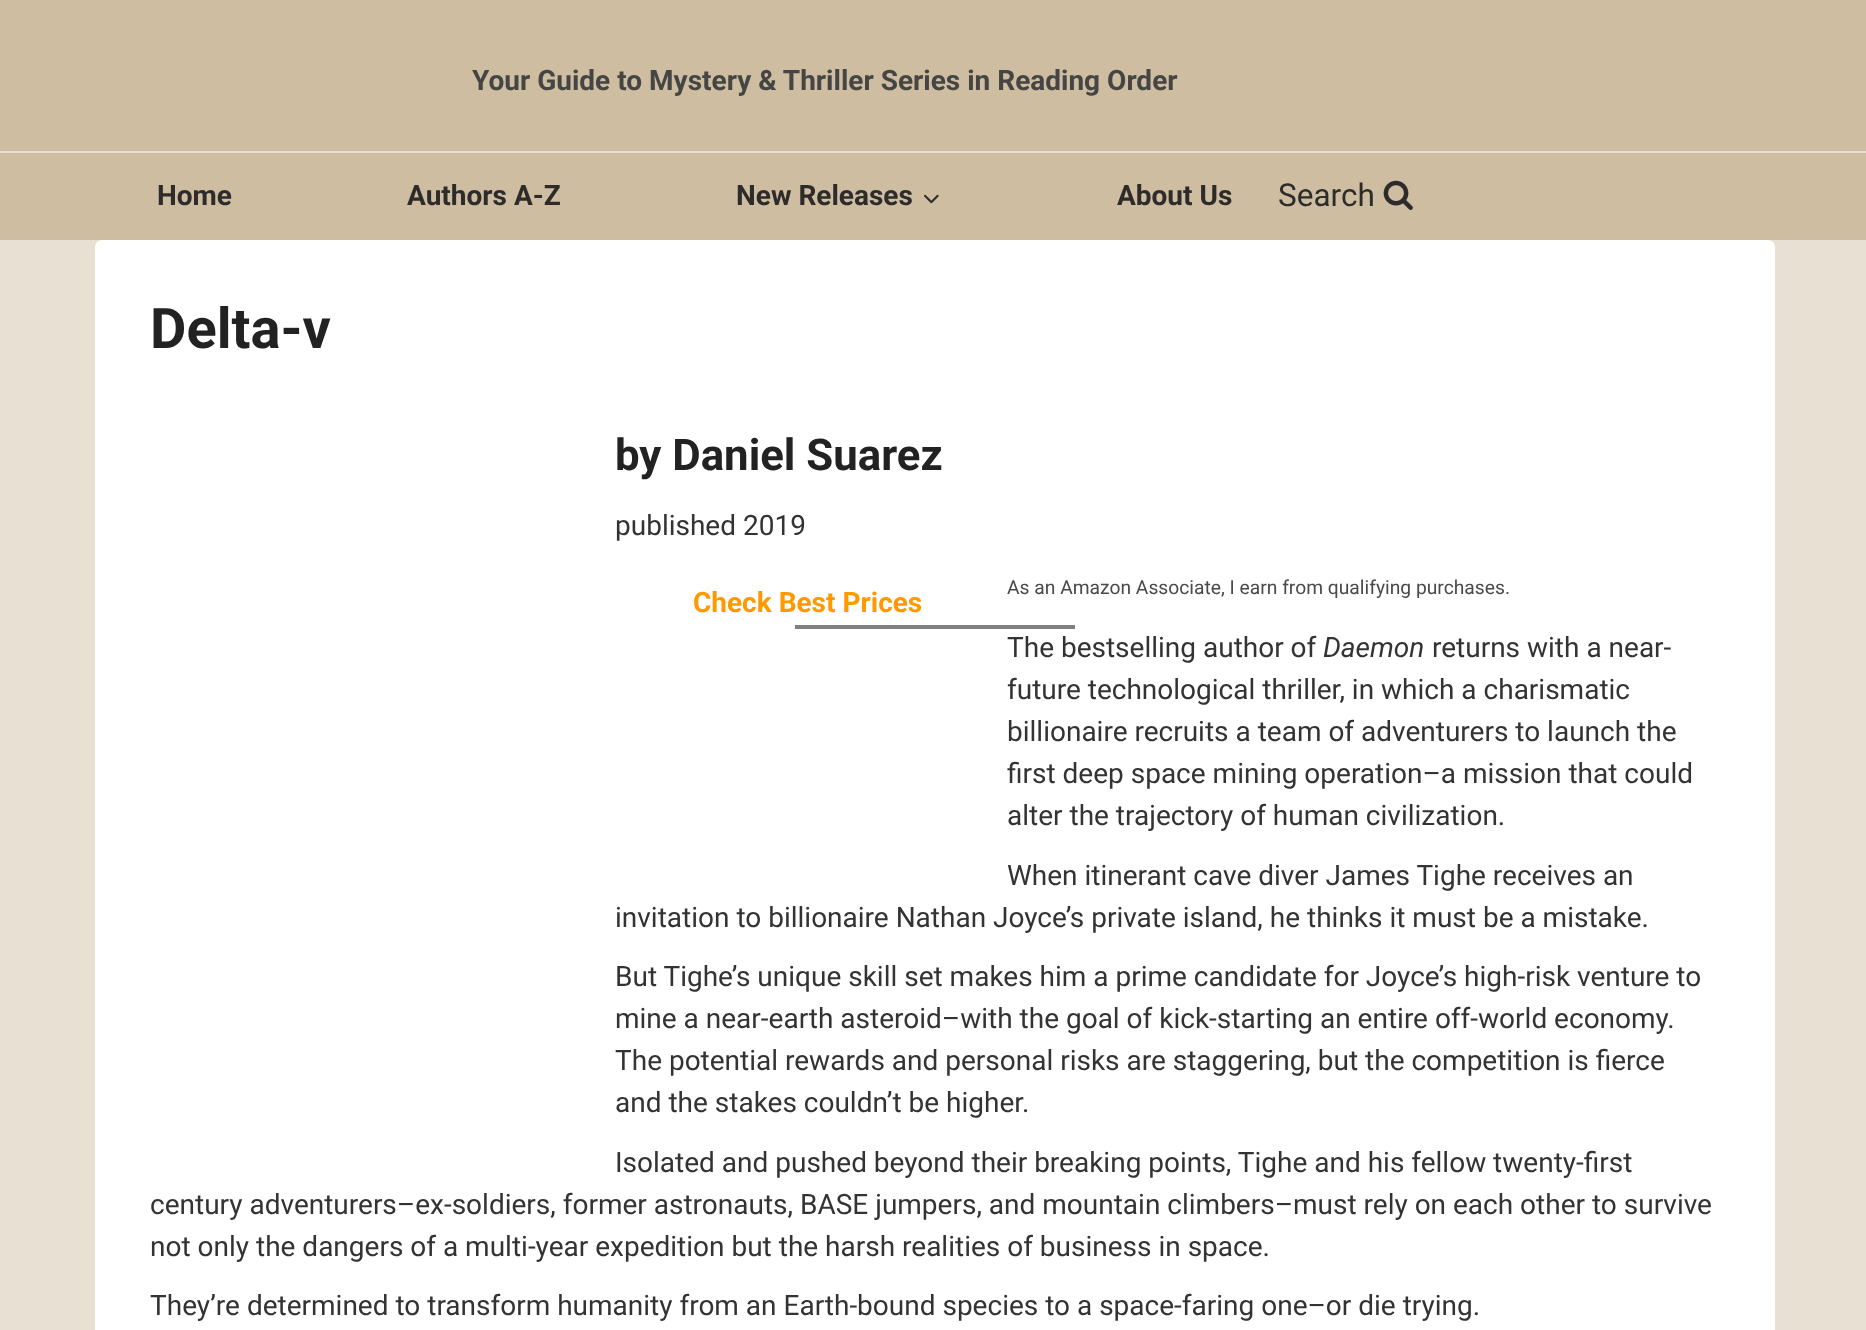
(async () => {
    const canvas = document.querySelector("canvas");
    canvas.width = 1866;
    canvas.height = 1330;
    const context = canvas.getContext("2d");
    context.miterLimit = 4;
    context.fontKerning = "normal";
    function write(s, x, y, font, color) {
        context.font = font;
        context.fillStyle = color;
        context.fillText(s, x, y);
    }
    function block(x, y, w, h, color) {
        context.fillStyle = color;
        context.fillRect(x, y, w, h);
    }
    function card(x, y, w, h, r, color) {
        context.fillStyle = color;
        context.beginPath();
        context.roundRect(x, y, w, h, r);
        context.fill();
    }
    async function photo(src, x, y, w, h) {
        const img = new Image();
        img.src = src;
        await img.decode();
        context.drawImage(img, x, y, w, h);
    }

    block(0, 0, 1866, 1330, "rgb(232, 224, 211)");
    block(0, 0, 1866, 240, "rgb(206, 189, 161)");
    write("Your Guide to Mystery & Thriller Series in Reading Order", 472, 90, "bold 28px Roboto", "rgb(69, 69, 68)");
    block(0, 151, 1866, 2, "rgb(232, 224, 211)");
    write("Home", 157, 205, "bold 28px Roboto", "rgb(46, 44, 42)");
    write("Authors A-Z", 407, 205, "bold 28px Roboto", "rgb(46, 44, 42)");
    write("New Releases", 736, 205, "bold 28px Roboto", "rgb(46, 44, 42)");
    await photo("media/1.png", 924, 194, 15, 10);
    write("About Us", 1117, 205, "bold 28px Roboto", "rgb(46, 44, 42)");
    write("Search", 1278, 206, "31.5px Roboto", "rgb(46, 44, 42)");
    await photo("media/2.png", 1383, 180, 30, 30);
    card(95, 240, 1680, 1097, 7, "rgb(255, 255, 255)");
    write("Delta-v", 150, 348, "bold 56px Roboto", "rgb(34, 34, 34)");
    write("by Daniel Suarez", 615, 470, "bold 43.75px Roboto", "rgb(34, 34, 34)");
    write("published 2019", 615, 535, "28px Roboto", "rgb(51, 51, 51)");
    write("As an Amazon Associate, I earn from qualifying purchases.", 1007, 594, "19.25px Roboto", "rgb(74, 74, 74)");
    block(795, 625, 280, 4, "rgb(128, 128, 128)");
    write("The bestselling author of", 1007, 657, "28px Roboto", "rgb(51, 51, 51)");
    write("Daemon", 1323, 657, "italic 28px Roboto", "rgb(51, 51, 51)");
    write("returns with a near-", 1432, 657, "28px Roboto", "rgb(51, 51, 51)");
    write("future technological thriller, in which a charismatic", 1007, 699, "28px Roboto", "rgb(51, 51, 51)");
    write("billionaire recruits a team of adventurers to launch the", 1007, 741, "28px Roboto", "rgb(51, 51, 51)");
    write("first deep space mining operation–a mission that could", 1007, 783, "28px Roboto", "rgb(51, 51, 51)");
    write("alter the trajectory of human civilization.", 1007, 825, "28px Roboto", "rgb(51, 51, 51)");
    write("When itinerant cave diver James Tighe receives an", 1007, 885, "28px Roboto", "rgb(51, 51, 51)");
    write("invitation to billionaire Nathan Joyce’s private island, he thinks it must be a mistake.", 615, 927, "28px Roboto", "rgb(51, 51, 51)");
    write("But Tighe’s unique skill set makes him a prime candidate for Joyce’s high-risk venture to", 615, 986, "28px Roboto", "rgb(51, 51, 51)");
    write("mine a near-earth asteroid–with the goal of kick-starting an entire off-world economy.", 615, 1028, "28px Roboto", "rgb(51, 51, 51)");
    write("The potential rewards and personal risks are staggering, but the competition is fierce", 615, 1070, "28px Roboto", "rgb(51, 51, 51)");
    write("and the stakes couldn’t be higher.", 615, 1112, "28px Roboto", "rgb(51, 51, 51)");
    write("Isolated and pushed beyond their breaking points, Tighe and his fellow twenty-first", 615, 1172, "28px Roboto", "rgb(51, 51, 51)");
    write("century adventurers–ex-soldiers, former astronauts, BASE jumpers, and mountain climbers–must rely on each other to survive", 150, 1214, "28px Roboto", "rgb(51, 51, 51)");
    write("not only the dangers of a multi-year expedition but the harsh realities of business in space.", 150, 1256, "28px Roboto", "rgb(51, 51, 51)");
    write("They’re determined to transform humanity from an Earth-bound species to a space-faring one–or die trying.", 150, 1315, "28px Roboto", "rgb(51, 51, 51)");
    write("Check Best Prices", 693, 612, "bold 28px Roboto", "rgb(255, 153, 0)");
})();
